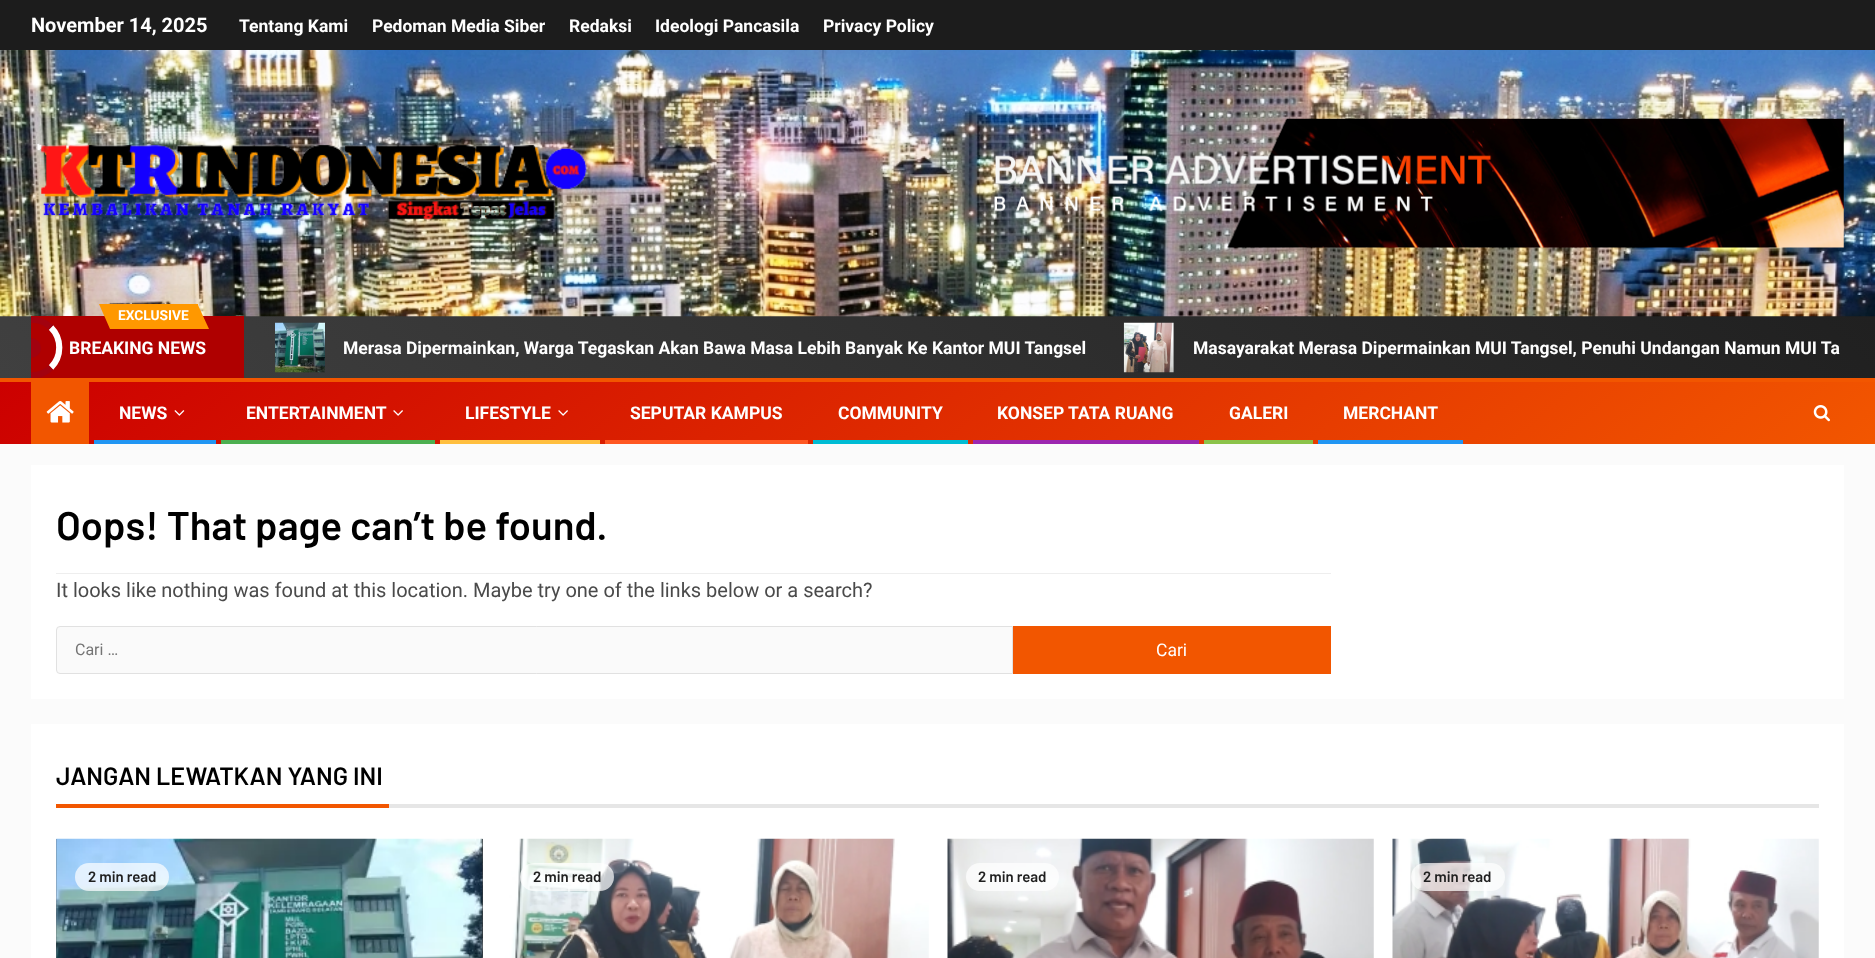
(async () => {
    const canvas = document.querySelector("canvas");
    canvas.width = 1875;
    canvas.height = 958;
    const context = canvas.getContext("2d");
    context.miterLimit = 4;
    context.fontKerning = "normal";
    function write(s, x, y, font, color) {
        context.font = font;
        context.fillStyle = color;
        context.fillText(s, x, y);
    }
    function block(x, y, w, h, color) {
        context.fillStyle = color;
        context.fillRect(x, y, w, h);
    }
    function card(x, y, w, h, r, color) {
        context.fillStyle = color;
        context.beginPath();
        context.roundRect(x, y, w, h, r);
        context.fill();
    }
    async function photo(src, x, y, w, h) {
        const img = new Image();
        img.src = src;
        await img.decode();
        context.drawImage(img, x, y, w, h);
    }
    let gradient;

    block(0, 0, 1875, 958, "rgb(251, 251, 251)");
    block(0, 0, 1875, 50, "rgb(28, 28, 28)");
    write("November 14, 2025", 31, 32, "bold 20px Roboto", "rgb(255, 255, 255)");
    write("Tentang Kami", 239, 32, "bold 17.5px Roboto", "rgb(255, 255, 255)");
    write("Pedoman Media Siber", 372, 32, "bold 17.5px Roboto", "rgb(255, 255, 255)");
    write("Redaksi", 569, 32, "bold 17.5px Roboto", "rgb(255, 255, 255)");
    write("Ideologi Pancasila", 655, 32, "bold 17.5px Roboto", "rgb(255, 255, 255)");
    write("Privacy Policy", 823, 32, "bold 17.5px Roboto", "rgb(255, 255, 255)");
    gradient = context.createLinearGradient(453, 831, 1422, -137);
    gradient.addColorStop(0, "rgb(64, 64, 64)");
    gradient.addColorStop(1, "rgb(32, 32, 32)");
    context.fillStyle = gradient;
    context.fillRect(0, 316, 1875, 62);
    await photo("media/1.png", 0, 50, 1875, 267);
    await photo("media/2.png", 36, 143, 551, 78);
    await photo("media/3.png", 994, 118, 850, 130);
    block(31, 316, 213, 62, "rgb(175, 0, 0)");
    block(110, 304, 88, 25, "rgb(255, 152, 0)");
    context.beginPath();
    context.moveTo(99, 304);
    context.lineTo(110, 304);
    context.lineTo(110, 329);
    context.closePath();
    context.fill();
    write("EXCLUSIVE", 118, 320, "bold 13.75px Roboto", "rgb(255, 255, 255)");
    context.fillStyle = "rgb(255, 152, 0)";
    context.beginPath();
    context.moveTo(209, 329);
    context.lineTo(197.5, 329);
    context.lineTo(197.5, 304);
    context.closePath();
    context.fill();
    context.beginPath();
    context.moveTo(51, 327.5);
    context.bezierCurveTo(62, 338.5, 62, 356.5, 51, 367.5);
    context.strokeStyle = "rgb(255, 255, 255)";
    context.lineWidth = 6.2;
    context.stroke();
    context.save();
    context.beginPath();
    context.rect(31, 316, 213, 62);
    context.clip();
    context.beginPath();
    context.moveTo(11.5, 327.5);
    context.bezierCurveTo(22, 317, 40.5, 317, 51, 327.5);
    context.moveTo(51, 367.5);
    context.bezierCurveTo(40.5, 378, 22, 378, 11.5, 367.5);
    context.strokeStyle = "rgb(162, 2, 15)";
    context.stroke();
    context.restore();
    context.fillStyle = "rgb(162, 2, 15)";
    context.beginPath();
    context.roundRect(31, 338, 10, 20, [0, 10, 10, 0]);
    context.fill();
    write("BREAKING NEWS", 69, 354, "bold 17.5px Roboto", "rgb(255, 255, 255)");
    await photo("media/4.png", 275, 322, 50, 51);
    write("Merasa Dipermainkan, Warga Tegaskan Akan Bawa Masa Lebih Banyak Ke Kantor MUI Tangsel", 343, 354, "bold 17.5px Roboto", "rgb(255, 255, 255)");
    await photo("media/5.png", 1123, 322, 51, 51);
    write("Masayarakat Merasa Dipermainkan MUI Tangsel, Penuhi Undangan Namun MUI Ta", 1193, 354, "bold 17.5px Roboto", "rgb(255, 255, 255)");
    gradient = context.createLinearGradient(535, -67, 1340, 892);
    gradient.addColorStop(0, "rgb(204, 0, 0)");
    gradient.addColorStop(1, "rgb(242, 86, 0)");
    context.fillStyle = gradient;
    context.fillRect(0, 382, 1875, 62);
    block(0, 378, 1875, 4, "rgb(242, 86, 0)");
    block(31, 382, 58, 62, "rgb(242, 86, 0)");
    await photo("media/6.png", 46, 401, 28, 22);
    write("NEWS", 119, 419, "bold 17.5px Roboto", "rgb(255, 255, 255)");
    await photo("media/7.png", 174, 410, 11, 6);
    block(94, 440, 122, 4, "rgb(33, 150, 243)");
    write("ENTERTAINMENT", 246, 419, "bold 17.5px Roboto", "rgb(255, 255, 255)");
    await photo("media/8.png", 393, 410, 10, 6);
    block(221, 440, 214, 4, "rgb(76, 175, 80)");
    write("LIFESTYLE", 465, 419, "bold 17.5px Roboto", "rgb(255, 255, 255)");
    await photo("media/9.png", 558, 410, 10, 6);
    block(440, 440, 160, 4, "rgb(255, 191, 63)");
    write("SEPUTAR KAMPUS", 630, 419, "bold 17.5px Roboto", "rgb(255, 255, 255)");
    block(605, 440, 203, 4, "rgb(255, 87, 34)");
    write("COMMUNITY", 838, 419, "bold 17.5px Roboto", "rgb(255, 255, 255)");
    block(813, 440, 155, 4, "rgb(0, 188, 212)");
    write("KONSEP TATA RUANG", 997, 419, "bold 17.5px Roboto", "rgb(255, 255, 255)");
    block(973, 440, 226, 4, "rgb(156, 39, 176)");
    write("GALERI", 1229, 419, "bold 17.5px Roboto", "rgb(255, 255, 255)");
    block(1204, 440, 109, 4, "rgb(139, 195, 74)");
    write("MERCHANT", 1343, 419, "bold 17.5px Roboto", "rgb(255, 255, 255)");
    block(1318, 440, 145, 4, "rgb(33, 150, 243)");
    await photo("media/10.png", 1813, 405, 17, 17);
    block(31, 465, 1813, 234, "rgb(255, 255, 255)");
    block(56, 573, 1275, 1, "rgb(238, 238, 238)");
    write("Oops! That page can’t be found.", 56, 540, "600 40px Barlow", "rgb(0, 0, 0)");
    write("It looks like nothing was found at this location. Maybe try one of the links below or a search?", 56, 597, "20px Roboto", "rgb(74, 74, 74)");
    context.fillStyle = "rgb(250, 250, 250)";
    context.beginPath();
    context.roundRect(56.5, 626.5, 956, 47, [3.5, 0, 0, 3.5]);
    context.fill();
    context.strokeStyle = "rgb(225, 225, 225)";
    context.lineWidth = 1;
    context.stroke();
    write("Cari …", 75, 655, "16px Roboto", "rgb(117, 117, 117)");
    block(1013, 626, 318, 48, "rgb(242, 86, 0)");
    write("Cari", 1156, 656, "17.5px Roboto", "rgb(255, 255, 255)");
    block(31, 724, 1813, 234, "rgb(255, 255, 255)");
    write("JANGAN LEWATKAN YANG INI", 56, 785, "600 25px Barlow", "rgb(0, 0, 0)");
    block(56, 804, 333, 4, "rgb(242, 86, 0)");
    block(389, 804, 1430, 4, "rgb(230, 230, 230)");
    block(56, 839, 427, 119, "rgb(64, 64, 64)");
    await photo("media/11.png", 56, 838, 427, 120);
    card(75, 863, 94, 28, 14, "rgba(255, 255, 255, 0.7)");
    write("2 min read", 88, 882, "600 15px Barlow", "rgb(32, 32, 32)");
    await photo("media/12.png", 501, 838, 428, 120);
    card(520, 863, 94, 28, 14, "rgba(255, 255, 255, 0.7)");
    write("2 min read", 533, 882, "600 15px Barlow", "rgb(32, 32, 32)");
    await photo("media/13.png", 947, 838, 427, 120);
    card(966, 863, 93, 28, 14, "rgba(255, 255, 255, 0.7)");
    write("2 min read", 978, 882, "600 15px Barlow", "rgb(32, 32, 32)");
    await photo("media/14.png", 1392, 838, 427, 120);
    card(1411, 863, 94, 28, 14, "rgba(255, 255, 255, 0.7)");
    write("2 min read", 1423, 882, "600 15px Barlow", "rgb(32, 32, 32)");
})();
